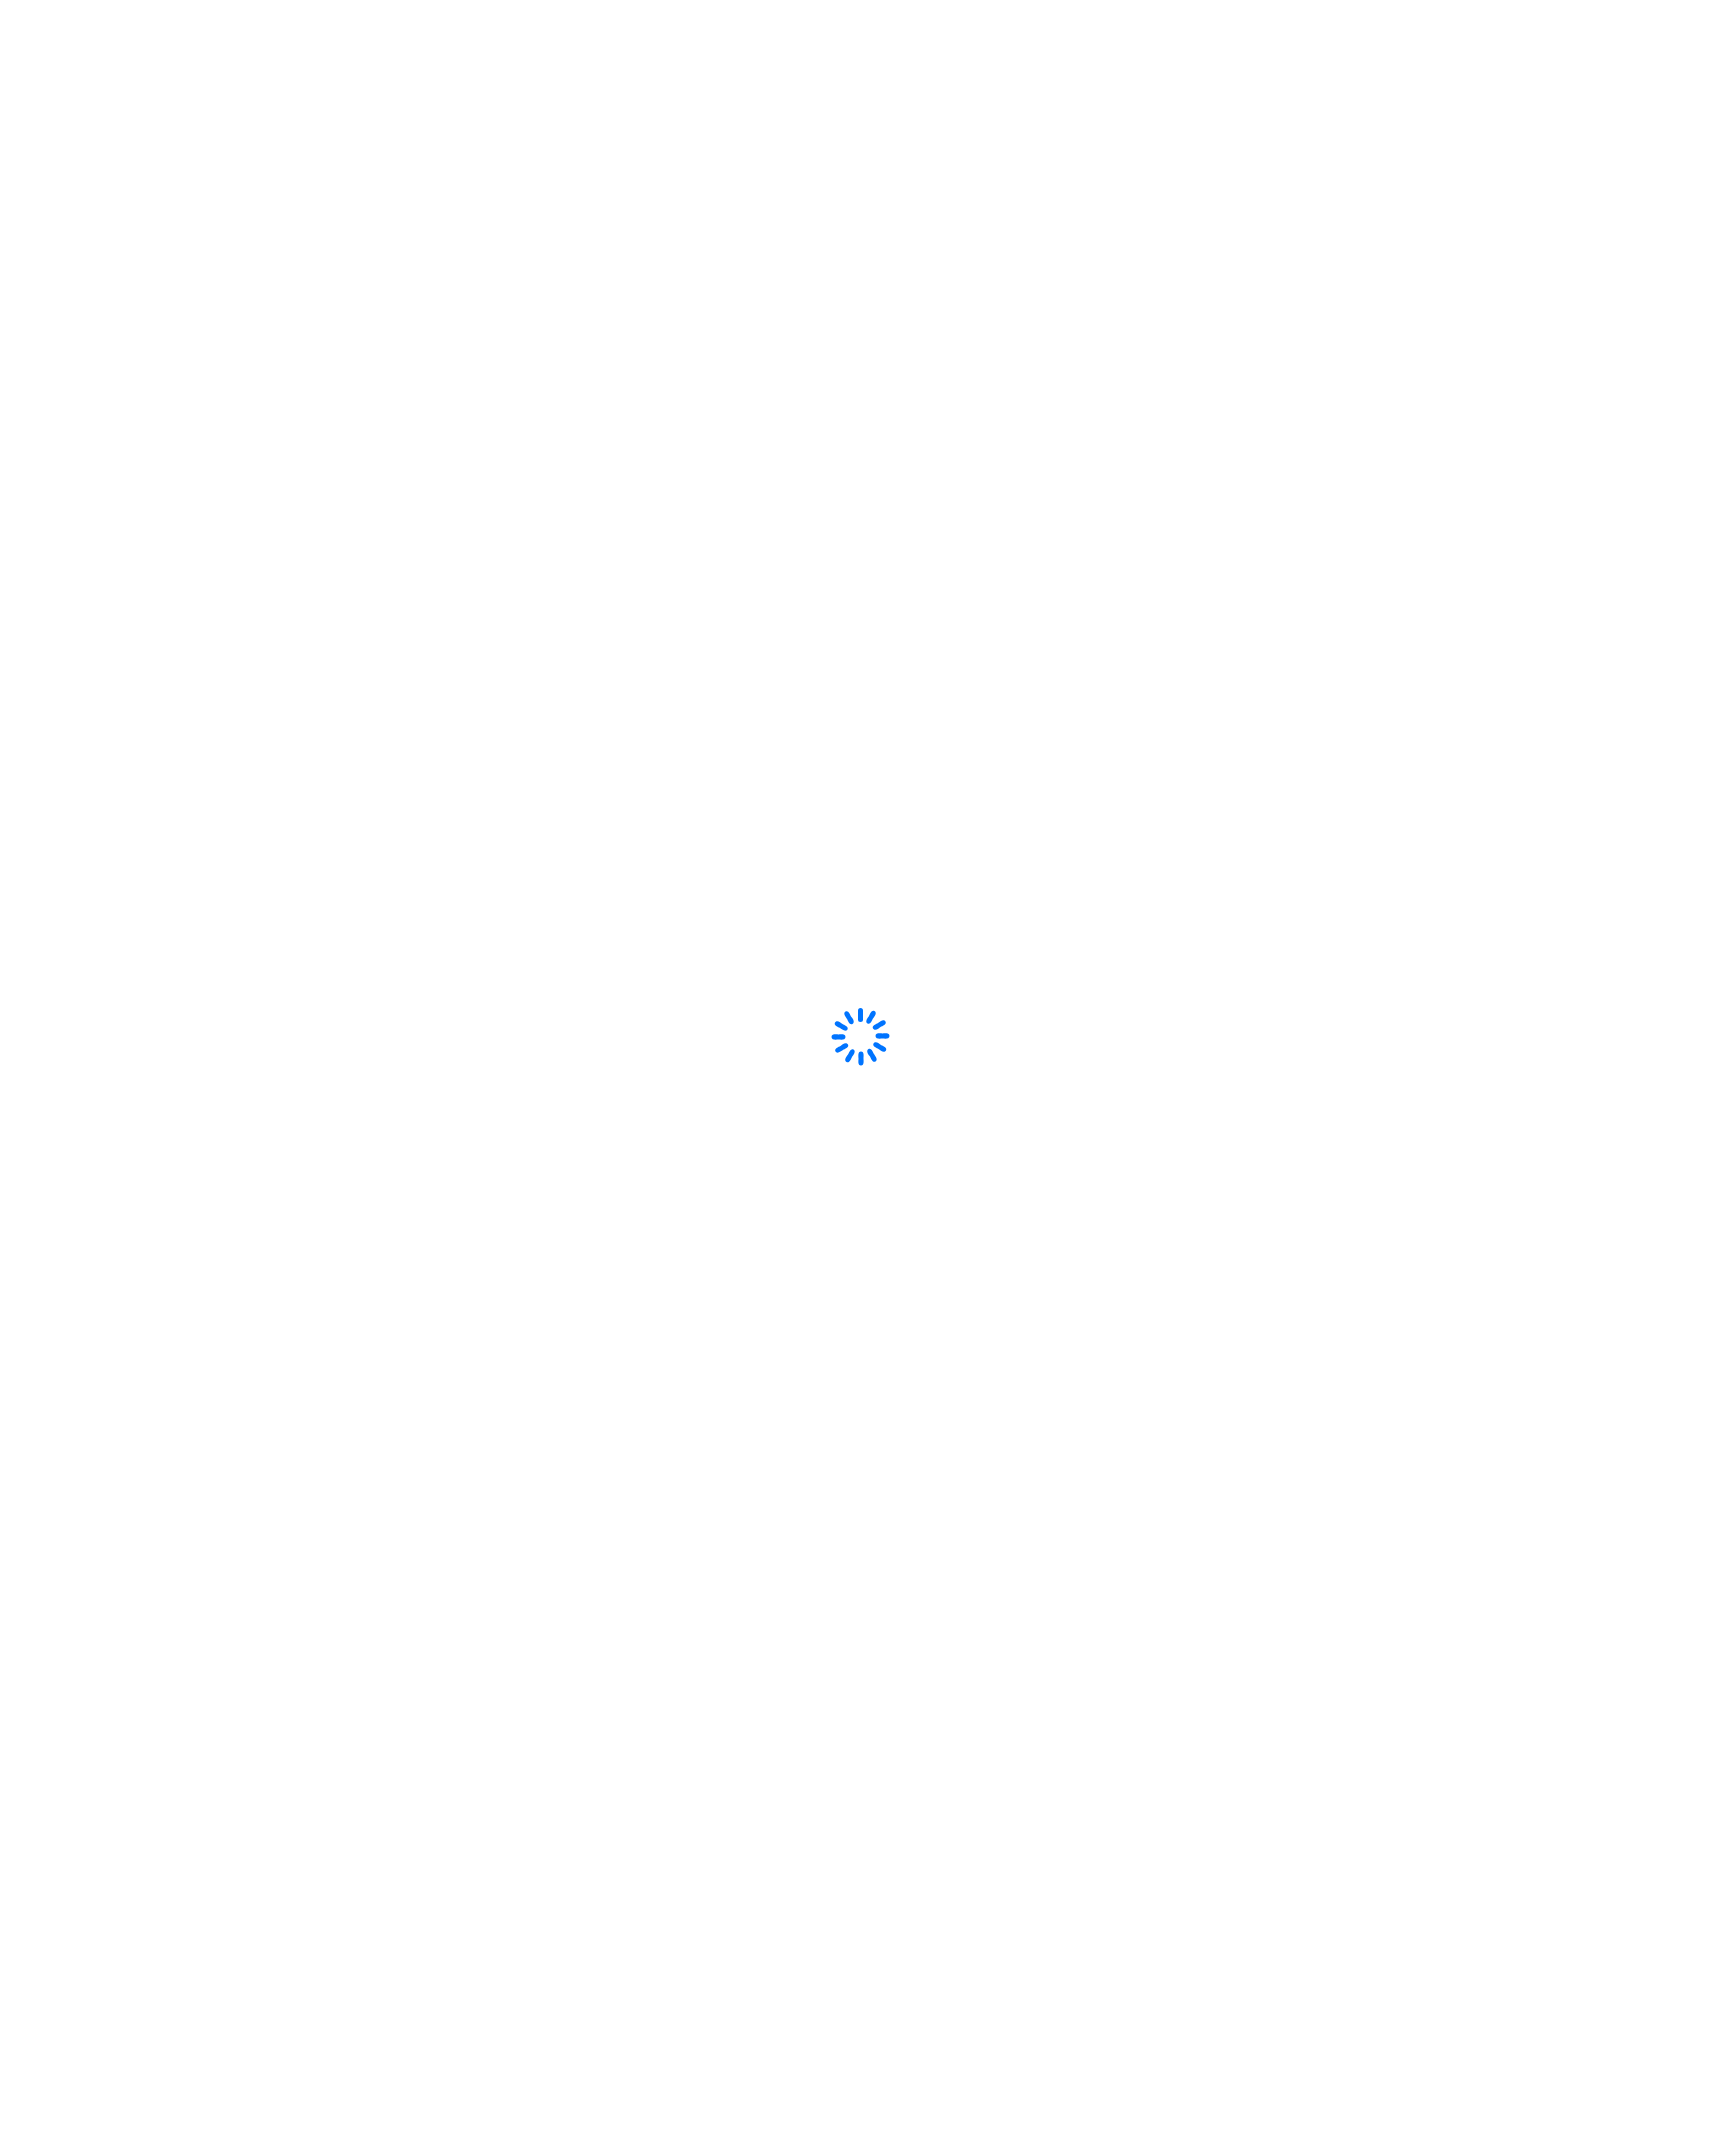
(async () => {
    const canvas = document.querySelector("canvas");
    canvas.width = 1732;
    canvas.height = 2152;
    const context = canvas.getContext("2d");
    context.miterLimit = 4;
    context.fontKerning = "normal";
    function block(x, y, w, h, color) {
        context.fillStyle = color;
        context.fillRect(x, y, w, h);
    }
    function card(x, y, w, h, r, color) {
        context.fillStyle = color;
        context.beginPath();
        context.roundRect(x, y, w, h, r);
        context.fill();
    }

    block(0, 0, 1732, 2152, "rgb(255, 255, 255)");
    context.fillStyle = "rgb(0, 116, 255)";
    context.beginPath();
    context.moveTo(874.5, 1011);
    context.bezierCurveTo(877.5, 1013, 874.5, 1016.5, 873, 1018.5);
    context.bezierCurveTo(872, 1020, 870.5, 1025, 867.5, 1023.5);
    context.bezierCurveTo(864.5, 1021.5, 868, 1017.5, 869, 1016);
    context.bezierCurveTo(870, 1014, 871.5, 1009.5, 874.5, 1011);
    context.closePath();
    context.fill();
    context.beginPath();
    context.moveTo(885.5, 1021.5);
    context.bezierCurveTo(887, 1024.5, 882.5, 1026, 880.5, 1027);
    context.bezierCurveTo(879, 1028.5, 875, 1031.5, 873, 1028.5);
    context.bezierCurveTo(871.5, 1025.5, 876.5, 1024, 878, 1023);
    context.bezierCurveTo(880, 1022, 883.5, 1018.5, 885.5, 1021.5);
    context.closePath();
    context.moveTo(889.5, 1036);
    context.bezierCurveTo(889.5, 1039.5, 884.5, 1038.5, 882.5, 1038.5);
    context.bezierCurveTo(880.5, 1038.5, 875.5, 1039.5, 875.5, 1036);
    context.bezierCurveTo(875.5, 1032.5, 880.5, 1033.5, 882.5, 1033.5);
    context.bezierCurveTo(884.5, 1033.5, 889.5, 1032.5, 889.5, 1036);
    context.closePath();
    context.moveTo(886, 1050.5);
    context.bezierCurveTo(884, 1053.5, 880.5, 1050.5, 878.5, 1049);
    context.bezierCurveTo(877, 1048, 872, 1046.5, 873.5, 1043.5);
    context.bezierCurveTo(875.5, 1040.5, 879.5, 1044, 881, 1045);
    context.bezierCurveTo(883, 1046, 887.5, 1047.5, 886, 1050.5);
    context.closePath();
    context.fill();
    context.beginPath();
    context.moveTo(875.5, 1061.5);
    context.bezierCurveTo(872.5, 1063, 871, 1058.5, 870, 1056.5);
    context.bezierCurveTo(868.5, 1055, 865.5, 1051, 868.5, 1049);
    context.bezierCurveTo(871.5, 1047.5, 873, 1052.5, 874, 1054);
    context.bezierCurveTo(875, 1056, 878.5, 1059.5, 875.5, 1061.5);
    context.closePath();
    context.moveTo(861, 1065.5);
    context.bezierCurveTo(857.5, 1065.5, 858.5, 1060.5, 858.5, 1058.5);
    context.bezierCurveTo(858.5, 1056.5, 857.5, 1051.5, 861, 1051.5);
    context.bezierCurveTo(864.5, 1051.5, 863.5, 1056.5, 863.5, 1058.5);
    context.bezierCurveTo(863.5, 1060.5, 864.5, 1065.5, 861, 1065.5);
    context.closePath();
    context.moveTo(846.5, 1062);
    context.bezierCurveTo(843.5, 1060, 846.5, 1056.5, 848, 1054.5);
    context.bezierCurveTo(849, 1053, 850.5, 1048, 853.5, 1049.5);
    context.bezierCurveTo(856.5, 1051.5, 853, 1055.5, 852, 1057);
    context.bezierCurveTo(851, 1059, 849.5, 1063.5, 846.5, 1062);
    context.closePath();
    context.fill();
    context.beginPath();
    context.moveTo(835.5, 1051.5);
    context.bezierCurveTo(834, 1048.5, 838.5, 1047, 840.5, 1046);
    context.bezierCurveTo(842, 1044.5, 846, 1041.5, 848, 1044.5);
    context.bezierCurveTo(849.5, 1047.5, 844.5, 1049, 843, 1050);
    context.bezierCurveTo(841, 1051, 837.5, 1054.5, 835.5, 1051.5);
    context.closePath();
    context.moveTo(831.5, 1037);
    context.bezierCurveTo(831.5, 1033.5, 836.5, 1034.5, 838.5, 1034.5);
    context.bezierCurveTo(840.5, 1034.5, 845.5, 1033.5, 845.5, 1037);
    context.bezierCurveTo(845.5, 1040.5, 840.5, 1039.5, 838.5, 1039.5);
    context.bezierCurveTo(836.5, 1039.5, 831.5, 1040.5, 831.5, 1037);
    context.closePath();
    context.moveTo(835, 1022.5);
    context.bezierCurveTo(837, 1019.5, 840.5, 1022.5, 842.5, 1024);
    context.bezierCurveTo(844, 1025, 849, 1026.5, 847.5, 1029.5);
    context.bezierCurveTo(845.5, 1032.5, 841.5, 1029, 840, 1028);
    context.bezierCurveTo(838, 1027, 833.5, 1025.5, 835, 1022.5);
    context.closePath();
    context.fill();
    context.beginPath();
    context.moveTo(845.5, 1011.5);
    context.bezierCurveTo(848.5, 1010, 850, 1014.5, 851, 1016.5);
    context.bezierCurveTo(852.5, 1018, 855.5, 1022, 852.5, 1024);
    context.bezierCurveTo(849.5, 1025.5, 848, 1020.5, 847, 1019);
    context.bezierCurveTo(846, 1017, 842.5, 1013.5, 845.5, 1011.5);
    context.closePath();
    context.fill();
    card(858, 1008, 5, 14, 2.5, "rgb(0, 116, 255)");
})();
